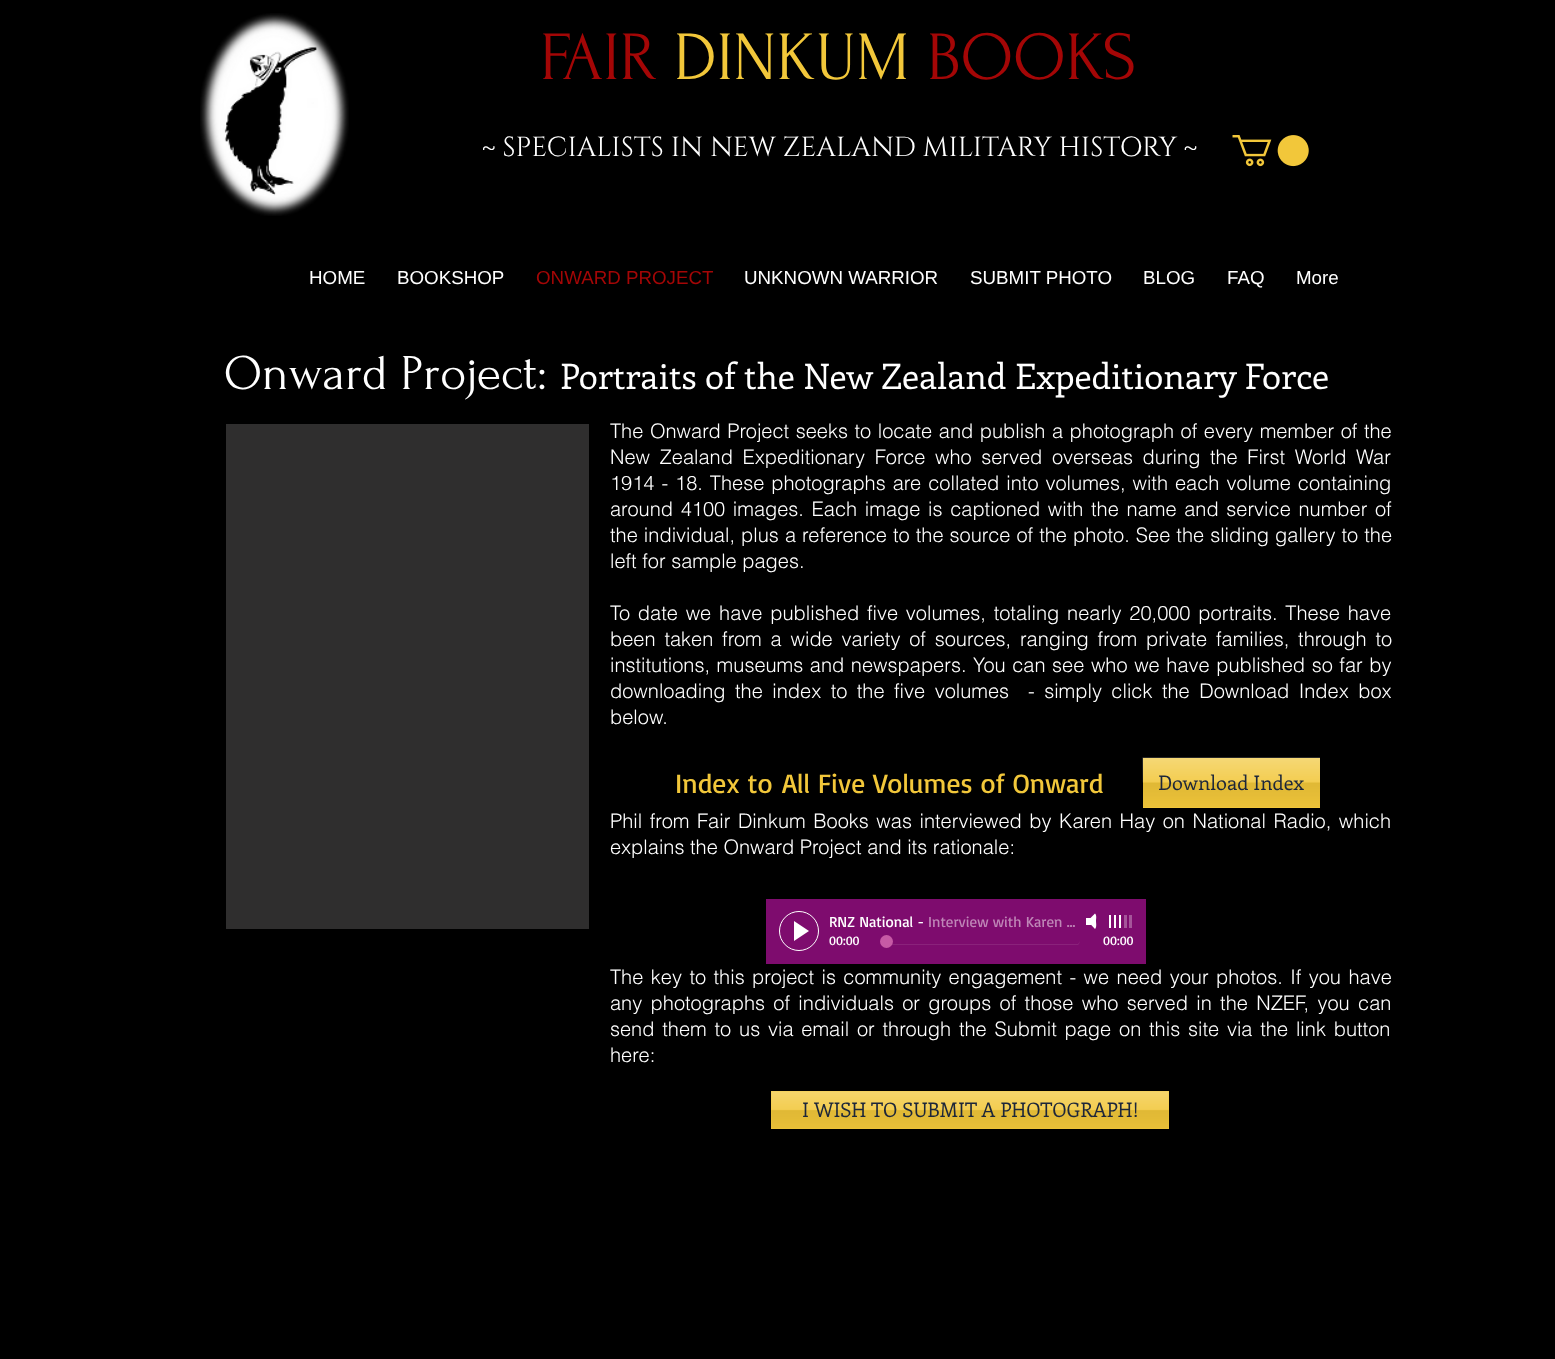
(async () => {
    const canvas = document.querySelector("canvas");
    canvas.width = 1555;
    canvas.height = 1359;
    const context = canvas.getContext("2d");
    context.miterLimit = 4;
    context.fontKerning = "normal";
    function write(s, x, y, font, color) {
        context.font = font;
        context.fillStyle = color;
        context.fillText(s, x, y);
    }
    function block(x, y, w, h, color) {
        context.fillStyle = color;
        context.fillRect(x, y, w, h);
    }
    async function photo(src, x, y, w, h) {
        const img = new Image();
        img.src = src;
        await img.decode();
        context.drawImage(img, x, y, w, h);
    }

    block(0, 0, 1555, 1359, "rgb(0, 0, 0)");
    await photo("media/1.png", 200, 13, 149, 203);
    write("FAIR", 540, 79, "69px Forum", "rgb(164, 6, 6)");
    write("DINKUM", 674, 79, "69px Forum", "rgb(242, 199, 58)");
    write("BOOKS", 927, 79, "69px Forum", "rgb(164, 6, 6)");
    write("~ SPECIALISTS IN NEW ZEALAND MILITARY HISTORY ~", 482, 156, "27.5px Cinzel", "rgb(255, 255, 255)");
    await photo("media/2.png", 1232, 135, 77, 32);
    write("HOME", 309, 284, "18.75px Liberation Sans", "rgb(255, 255, 255)");
    write("BOOKSHOP", 397, 284, "18.75px Liberation Sans", "rgb(255, 255, 255)");
    write("ONWARD PROJECT", 536, 284, "18.75px Liberation Sans", "rgb(164, 6, 6)");
    write("UNKNOWN WARRIOR", 744, 284, "18.75px Liberation Sans", "rgb(255, 255, 255)");
    write("SUBMIT PHOTO", 970, 284, "18.75px Liberation Sans", "rgb(255, 255, 255)");
    write("BLOG", 1143, 284, "18.75px Liberation Sans", "rgb(255, 255, 255)");
    write("FAQ", 1227, 284, "18.75px Liberation Sans", "rgb(255, 255, 255)");
    write("More", 1296, 284, "18.75px Liberation Sans", "rgb(255, 255, 255)");
    write("Onward Project:", 224, 389, "50px Forum", "rgb(255, 255, 255)");
    write("Portraits of the New Zealand Expeditionary Force", 560, 389, "35px Enriqueta", "rgb(255, 255, 255)");
    block(226, 424, 363, 505, "rgb(47, 46, 46)");
    context.wordSpacing = "1px";
    write("The Onward Project seeks to locate and publish a photograph of every member of the", 610, 438, "300 20px helvetica", "rgb(255, 255, 255)");
    context.wordSpacing = "4px";
    write("New Zealand Expeditionary Force who served overseas during the First World War", 610, 464, "300 20px helvetica", "rgb(255, 255, 255)");
    context.wordSpacing = "1.4px";
    write("1914 - 18. These photographs are collated into volumes, with each volume containing", 610, 490, "300 20px helvetica", "rgb(255, 255, 255)");
    context.wordSpacing = "2.1px";
    write("around 4100 images. Each image is captioned with the name and service number of", 610, 516, "300 20px helvetica", "rgb(255, 255, 255)");
    context.wordSpacing = "0.5px";
    write("the individual, plus a reference to the source of the photo. See the sliding gallery to the", 610, 542, "300 20px helvetica", "rgb(255, 255, 255)");
    context.wordSpacing = "0px";
    write("left for sample pages.", 610, 568, "300 20px helvetica", "rgb(255, 255, 255)");
    context.wordSpacing = "2.25px";
    write("To date we have published five volumes, totaling nearly 20,000 portraits. These have", 610, 620, "300 20px helvetica", "rgb(255, 255, 255)");
    context.wordSpacing = "3.25px";
    write("been taken from a wide variety of sources, ranging from private families, through to", 610, 646, "300 20px helvetica", "rgb(255, 255, 255)");
    context.wordSpacing = "1px";
    write("institutions, museums and newspapers. You can see who we have published so far by", 610, 672, "300 20px helvetica", "rgb(255, 255, 255)");
    context.wordSpacing = "3.9px";
    write("downloading the index to the five volumes  - simply click the Download Index box", 610, 698, "300 20px helvetica", "rgb(255, 255, 255)");
    context.wordSpacing = "0px";
    write("below.", 610, 724, "300 20px helvetica", "rgb(255, 255, 255)");
    context.wordSpacing = "2px";
    write("Phil from Fair Dinkum Books was interviewed by Karen Hay on National Radio, which", 610, 828, "300 20px helvetica", "rgb(255, 255, 255)");
    context.wordSpacing = "0px";
    write("explains the Onward Project and its rationale:", 610, 854, "300 20px helvetica", "rgb(255, 255, 255)");
    context.wordSpacing = "1.9px";
    write("The key to this project is community engagement - we need your photos. If you have", 610, 984, "300 20px helvetica", "rgb(255, 255, 255)");
    context.wordSpacing = "2.75px";
    write("any photographs of individuals or groups of those who served in the NZEF, you can", 610, 1010, "300 20px helvetica", "rgb(255, 255, 255)");
    context.wordSpacing = "2.25px";
    write("send them to us via email or through the Submit page on this site via the link button", 610, 1036, "300 20px helvetica", "rgb(255, 255, 255)");
    context.wordSpacing = "0px";
    write("here:", 610, 1062, "300 20px helvetica", "rgb(255, 255, 255)");
    write("Index to", 675, 793, "27.5px Basic", "rgb(242, 199, 58)");
    write("All Five Volumes of Onward", 782, 793, "27.5px Basic", "rgb(242, 199, 58)");
    block(1143, 758, 177, 50, "rgb(242, 199, 58)");
    await photo("media/3.png", 1142, 757, 178, 50);
    write("Download Index", 1158, 790, "20px Enriqueta", "rgb(28, 38, 58)");
    block(766, 899, 380, 65, "rgb(126, 12, 110)");
    context.beginPath();
    context.arc(799, 931, 19.5, 0, Math.PI * 2);
    context.strokeStyle = "rgb(255, 255, 255)";
    context.stroke();
    context.fillStyle = "rgb(255, 255, 255)";
    context.beginPath();
    context.moveTo(794, 941);
    context.lineTo(794, 921);
    context.lineTo(809, 931);
    context.closePath();
    context.fill();
    write("RNZ National -", 829, 927, "15px Basic", "rgb(255, 255, 255)");
    write("Interview with Karen …", 928, 927, "15px Basic", "rgb(191, 134, 183)");
    context.fillStyle = "rgb(255, 255, 255)";
    context.beginPath();
    context.moveTo(1095, 913.5);
    context.bezierCurveTo(1097, 915.5, 1096, 919, 1096, 921);
    context.bezierCurveTo(1096, 923.5, 1097, 927, 1095, 929);
    context.lineTo(1087.5, 921);
    context.closePath();
    context.fill();
    block(1086, 918, 5, 7, "rgb(255, 255, 255)");
    block(1109, 915, 2, 13, "rgb(255, 255, 255)");
    block(1114, 915, 2, 13, "rgb(255, 255, 255)");
    block(1119, 915, 2, 13, "rgb(255, 255, 255)");
    block(1124, 915, 3, 13, "rgb(165, 85, 154)");
    block(1129, 915, 3, 13, "rgb(165, 85, 154)");
    write("00:00", 829, 945, "12.5px Basic", "rgb(255, 255, 255)");
    write("00:00", 1103, 945, "12.5px Basic", "rgb(255, 255, 255)");
    context.fillStyle = "rgb(138, 34, 123)";
    context.beginPath();
    context.moveTo(880, 941);
    context.bezierCurveTo(880, 943, 881, 945, 883, 945);
    context.lineTo(1078, 945);
    context.lineTo(1079, 944);
    context.lineTo(1080, 941);
    context.lineTo(1078, 944);
    context.lineTo(883, 944);
    context.bezierCurveTo(882, 944, 880, 943, 880, 941);
    context.closePath();
    context.fill();
    context.fillStyle = "rgb(198, 90, 165)";
    context.beginPath();
    context.arc(886.5, 941.5, 6.5, 0, Math.PI * 2);
    context.fill();
    block(771, 1091, 398, 38, "rgb(242, 199, 58)");
    await photo("media/4.png", 771, 1091, 398, 38);
    write("I WISH TO SUBMIT A PHOTOGRAPH!", 802, 1117, "20px Enriqueta", "rgb(28, 38, 58)");
})();
